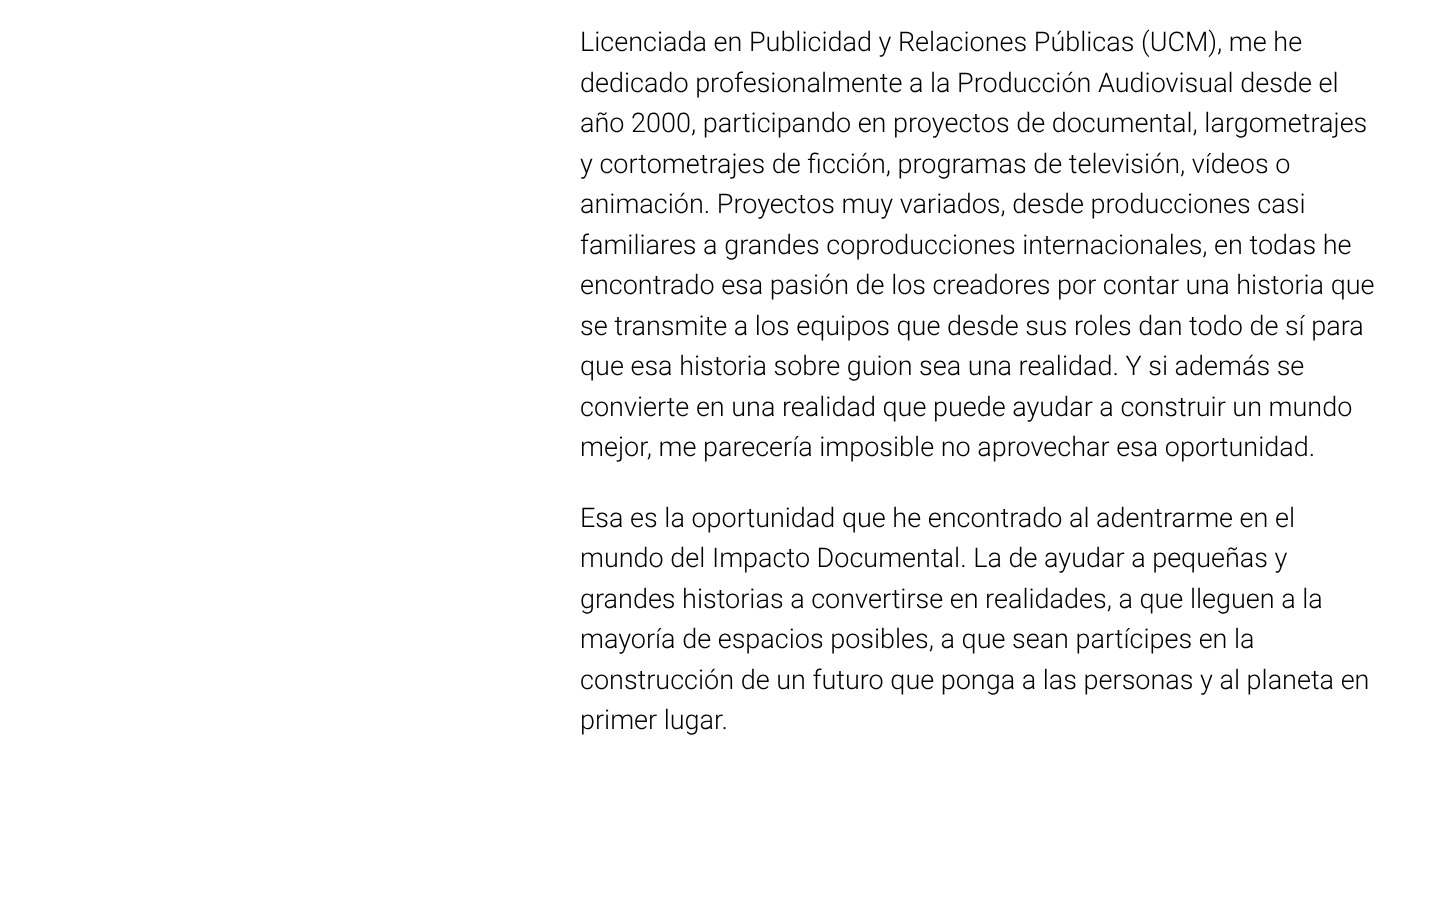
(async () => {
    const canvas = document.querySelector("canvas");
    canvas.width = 1440;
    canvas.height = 905;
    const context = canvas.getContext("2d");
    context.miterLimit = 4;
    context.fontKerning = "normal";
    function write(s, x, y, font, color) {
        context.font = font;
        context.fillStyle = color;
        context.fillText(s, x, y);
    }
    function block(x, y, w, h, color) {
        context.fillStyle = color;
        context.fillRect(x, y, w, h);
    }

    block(0, 0, 1440, 905, "rgb(255, 255, 255)");
    write("Licenciada en Publicidad y Relaciones Públicas (UCM), me he", 580, 51, "300 27px Roboto", "rgb(0, 0, 0)");
    write("dedicado profesionalmente a la Producción Audiovisual desde el", 580, 92, "300 27px Roboto", "rgb(0, 0, 0)");
    write("año 2000, participando en proyectos de documental, largometrajes", 580, 132, "300 27px Roboto", "rgb(0, 0, 0)");
    write("y cortometrajes de ficción, programas de televisión, vídeos o", 580, 173, "300 27px Roboto", "rgb(0, 0, 0)");
    write("animación. Proyectos muy variados, desde producciones casi", 580, 213, "300 27px Roboto", "rgb(0, 0, 0)");
    write("familiares a grandes coproducciones internacionales, en todas he", 580, 254, "300 27px Roboto", "rgb(0, 0, 0)");
    write("encontrado esa pasión de los creadores por contar una historia que", 580, 294, "300 27px Roboto", "rgb(0, 0, 0)");
    write("se transmite a los equipos que desde sus roles dan todo de sí para", 580, 335, "300 27px Roboto", "rgb(0, 0, 0)");
    write("que esa historia sobre guion sea una realidad. Y si además se", 580, 375, "300 27px Roboto", "rgb(0, 0, 0)");
    write("convierte en una realidad que puede ayudar a construir un mundo", 580, 416, "300 27px Roboto", "rgb(0, 0, 0)");
    write("mejor, me parecería imposible no aprovechar esa oportunidad.", 580, 456, "300 27px Roboto", "rgb(0, 0, 0)");
    write("Esa es la oportunidad que he encontrado al adentrarme en el", 580, 527, "300 27px Roboto", "rgb(0, 0, 0)");
    write("mundo del Impacto Documental. La de ayudar a pequeñas y", 580, 567, "300 27px Roboto", "rgb(0, 0, 0)");
    write("grandes historias a convertirse en realidades, a que lleguen a la", 580, 608, "300 27px Roboto", "rgb(0, 0, 0)");
    write("mayoría de espacios posibles, a que sean partícipes en la", 580, 648, "300 27px Roboto", "rgb(0, 0, 0)");
    write("construcción de un futuro que ponga a las personas y al planeta en", 580, 689, "300 27px Roboto", "rgb(0, 0, 0)");
    write("primer lugar.", 580, 729, "300 27px Roboto", "rgb(0, 0, 0)");
})();
